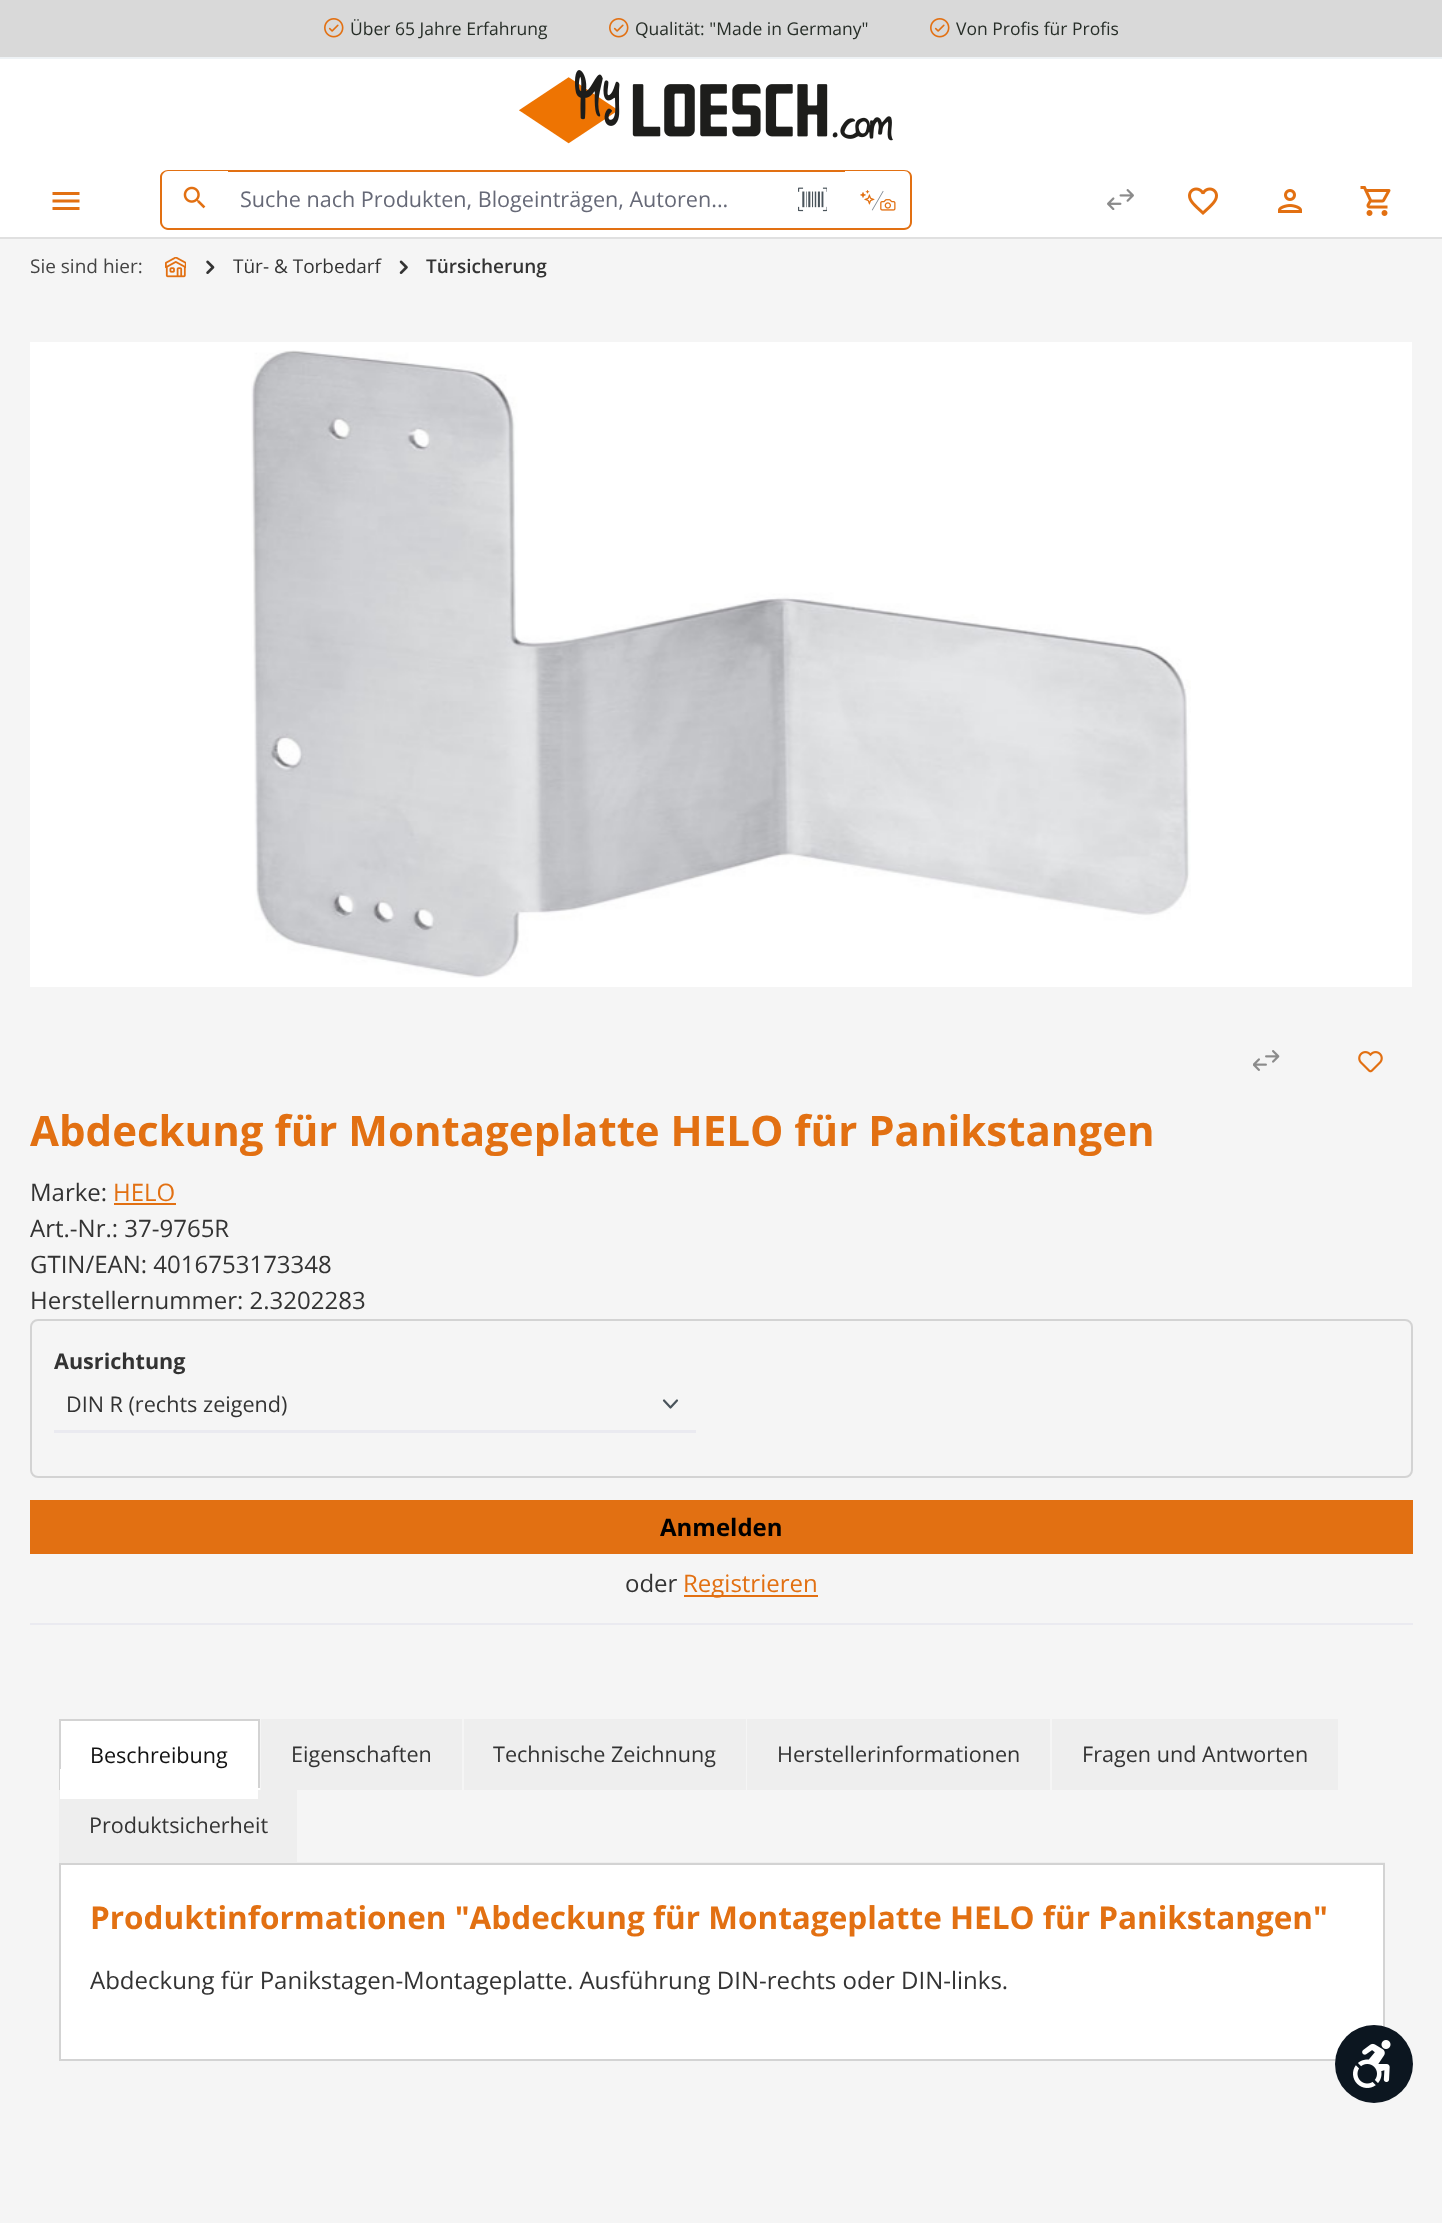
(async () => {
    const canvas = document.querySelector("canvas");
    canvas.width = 1442;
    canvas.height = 2223;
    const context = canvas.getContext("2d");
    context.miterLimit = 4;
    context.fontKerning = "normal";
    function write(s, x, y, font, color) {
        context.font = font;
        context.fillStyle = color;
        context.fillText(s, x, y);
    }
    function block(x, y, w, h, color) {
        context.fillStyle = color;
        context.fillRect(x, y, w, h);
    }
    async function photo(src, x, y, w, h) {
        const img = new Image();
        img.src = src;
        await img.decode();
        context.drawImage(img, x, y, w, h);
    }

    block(0, 0, 1442, 2223, "rgb(245, 245, 245)");
    block(0, 0, 1442, 57, "rgb(217, 217, 217)");
    block(0, 57, 1442, 2, "rgb(238, 242, 245)");
    await photo("media/1.png", 324, 18, 20, 20);
    write("Über 65 Jahre Erfahrung", 350, 35, "17.5px Open Sans", "rgb(39, 46, 40)");
    await photo("media/1.png", 609, 18, 20, 20);
    write("Qualität: \"Made in Germany\"", 635, 35, "17.5px Open Sans", "rgb(39, 46, 40)");
    await photo("media/1.png", 930, 18, 20, 20);
    write("Von Profis für Profis", 956, 35, "17.5px Open Sans", "rgb(39, 46, 40)");
    block(0, 59, 1442, 178, "rgb(255, 255, 255)");
    await photo("media/2.png", 519, 70, 374, 74);
    await photo("media/3.png", 52, 192, 28, 18);
    context.fillStyle = "rgb(226, 112, 18)";
    context.beginPath();
    context.moveTo(168, 170);
    context.lineTo(228, 170);
    context.lineTo(228, 230);
    context.lineTo(168, 230);
    context.bezierCurveTo(164, 230, 160, 226, 160, 222);
    context.lineTo(160, 177);
    context.bezierCurveTo(160, 173, 164, 170, 168, 170);
    context.closePath();
    context.moveTo(168, 171);
    context.lineTo(228, 171);
    context.lineTo(228, 228);
    context.lineTo(168, 228);
    context.bezierCurveTo(165, 228, 162, 225, 162, 222);
    context.lineTo(162, 177);
    context.bezierCurveTo(162, 174, 165, 171, 168, 171);
    context.closePath();
    context.fill("evenodd");
    await photo("media/4.png", 183, 186, 23, 23);
    context.beginPath();
    context.moveTo(844, 170);
    context.lineTo(904, 170);
    context.bezierCurveTo(909, 170, 912, 173, 912, 177);
    context.lineTo(912, 222);
    context.bezierCurveTo(912, 226, 909, 230, 904, 230);
    context.lineTo(844, 230);
    context.closePath();
    context.moveTo(844, 171);
    context.lineTo(904, 171);
    context.bezierCurveTo(908, 171, 910, 174, 910, 177);
    context.lineTo(910, 222);
    context.bezierCurveTo(910, 225, 908, 228, 904, 228);
    context.lineTo(844, 228);
    context.closePath();
    context.fill("evenodd");
    block(228, 170, 617, 2, "rgb(226, 112, 18)");
    block(228, 228, 617, 2, "rgb(226, 112, 18)");
    write("Suche nach Produkten, Blogeinträgen, Autoren...", 240, 207, "21.6px Open Sans", "rgb(102, 105, 119)");
    await photo("media/5.png", 798, 187, 29, 25);
    await photo("media/6.png", 860, 190, 36, 21);
    await photo("media/7.png", 1107, 189, 27, 21);
    await photo("media/8.png", 1188, 187, 30, 28);
    await photo("media/9.png", 1278, 189, 24, 24);
    await photo("media/10.png", 1360, 186, 31, 30);
    block(0, 237, 1442, 2, "rgb(224, 224, 224)");
    write("Sie sind hier:", 30, 273, "19px Open Sans", "rgb(68, 68, 68)");
    await photo("media/11.png", 165, 257, 21, 21);
    await photo("media/12.png", 206, 260, 9, 14);
    write("Tür- & Torbedarf", 233, 273, "19px Open Sans", "rgb(51, 51, 51)");
    await photo("media/13.png", 399, 260, 9, 14);
    write("Türsicherung", 426, 273, "600 19px Open Sans", "rgb(51, 51, 51)");
    block(30, 342, 1382, 645, "rgb(255, 255, 255)");
    await photo("media/14.png", 251, 350, 940, 628);
    await photo("media/15.png", 1253, 1050, 27, 21);
    await photo("media/16.png", 1358, 1051, 25, 22);
    write("Abdeckung für Montageplatte HELO für Panikstangen", 30, 1146, "bold 42px Open Sans", "rgb(226, 112, 18)");
    write("Marke:", 30, 1201, "24px Open Sans", "rgb(51, 51, 51)");
    write("HELO", 113, 1201, "24px Open Sans", "rgb(226, 112, 18)");
    block(114, 1203, 62, 2, "rgb(226, 112, 18)");
    write("Art.-Nr.: 37-9765R", 30, 1237, "24px Open Sans", "rgb(51, 51, 51)");
    write("GTIN/EAN: 4016753173348", 30, 1273, "24px Open Sans", "rgb(51, 51, 51)");
    write("Herstellernummer: 2.3202283", 30, 1309, "24px Open Sans", "rgb(51, 51, 51)");
    context.beginPath();
    context.roundRect(31, 1320, 1381, 157, 7);
    context.strokeStyle = "rgb(211, 211, 211)";
    context.lineWidth = 2;
    context.stroke();
    write("Ausrichtung", 54, 1369, "bold 21.6px Open Sans", "rgb(51, 51, 51)");
    context.beginPath();
    context.moveTo(664, 1400.5);
    context.lineTo(670.5, 1407.5);
    context.lineTo(677, 1400.5);
    context.strokeStyle = "rgb(74, 84, 91)";
    context.lineWidth = 2.2;
    context.lineCap = "round";
    context.lineJoin = "round";
    context.stroke();
    block(54, 1430, 642, 3, "rgb(234, 234, 240)");
    write("DIN R (rechts zeigend)", 66, 1412, "21.6px Open Sans", "rgb(51, 51, 51)");
    block(30, 1623, 1383, 2, "rgb(234, 234, 240)");
    block(30, 1500, 1383, 54, "rgb(226, 112, 18)");
    write("Anmelden", 660, 1536, "bold 24px Open Sans", "rgb(0, 0, 0)");
    write("oder", 625, 1592, "24px Open Sans", "rgb(51, 51, 51)");
    block(684, 1595, 134, 2, "rgb(226, 112, 18)");
    write("Registrieren", 683, 1592, "24px Open Sans", "rgb(226, 112, 18)");
    block(59, 1862, 1326, 1, "rgb(238, 238, 238)");
    block(61, 1721, 197, 48, "rgb(255, 255, 255)");
    block(59, 1719, 201, 2, "rgb(211, 211, 211)");
    block(258, 1719, 2, 71, "rgb(211, 211, 211)");
    block(258, 1788, 2, 2, "rgb(255, 255, 255)");
    block(59, 1719, 2, 71, "rgb(211, 211, 211)");
    write("Beschreibung", 90, 1763, "21.6px Open Sans", "rgb(17, 17, 17)");
    block(59, 1790, 238, 72, "rgb(238, 238, 238)");
    block(60, 1769, 198, 30, "rgb(255, 255, 255)");
    block(261, 1719, 201, 71, "rgb(238, 238, 238)");
    write("Eigenschaften", 291, 1762, "21.6px Open Sans", "rgb(51, 51, 51)");
    block(464, 1719, 282, 71, "rgb(238, 238, 238)");
    write("Technische Zeichnung", 493, 1762, "21.6px Open Sans", "rgb(51, 51, 51)");
    block(747, 1719, 303, 71, "rgb(238, 238, 238)");
    write("Herstellerinformationen", 777, 1762, "21.6px Open Sans", "rgb(51, 51, 51)");
    block(1052, 1719, 286, 71, "rgb(238, 238, 238)");
    write("Fragen und Antworten", 1082, 1762, "21.6px Open Sans", "rgb(51, 51, 51)");
    write("Produktsicherheit", 89, 1833, "21.6px Open Sans", "rgb(51, 51, 51)");
    context.fillStyle = "rgb(255, 255, 255)";
    context.beginPath();
    context.rect(60, 1864, 1324, 196);
    context.fill();
    context.strokeStyle = "rgb(211, 211, 211)";
    context.lineWidth = 2;
    context.lineJoin = "miter";
    context.stroke();
    write("Produktinformationen \"Abdeckung für Montageplatte HELO für Panikstangen\"", 90, 1929, "bold 31.5px Open Sans", "rgb(226, 112, 18)");
    write("Abdeckung für Panikstagen-Montageplatte. Ausführung DIN-rechts oder DIN-links.", 90, 1989, "24px Open Sans", "rgb(51, 51, 51)");
    context.fillStyle = "rgb(12, 22, 32)";
    context.beginPath();
    context.arc(1374, 2064, 39, 0, Math.PI * 2);
    context.fill();
    await photo("media/17.png", 1353, 2040, 38, 48);
})();
